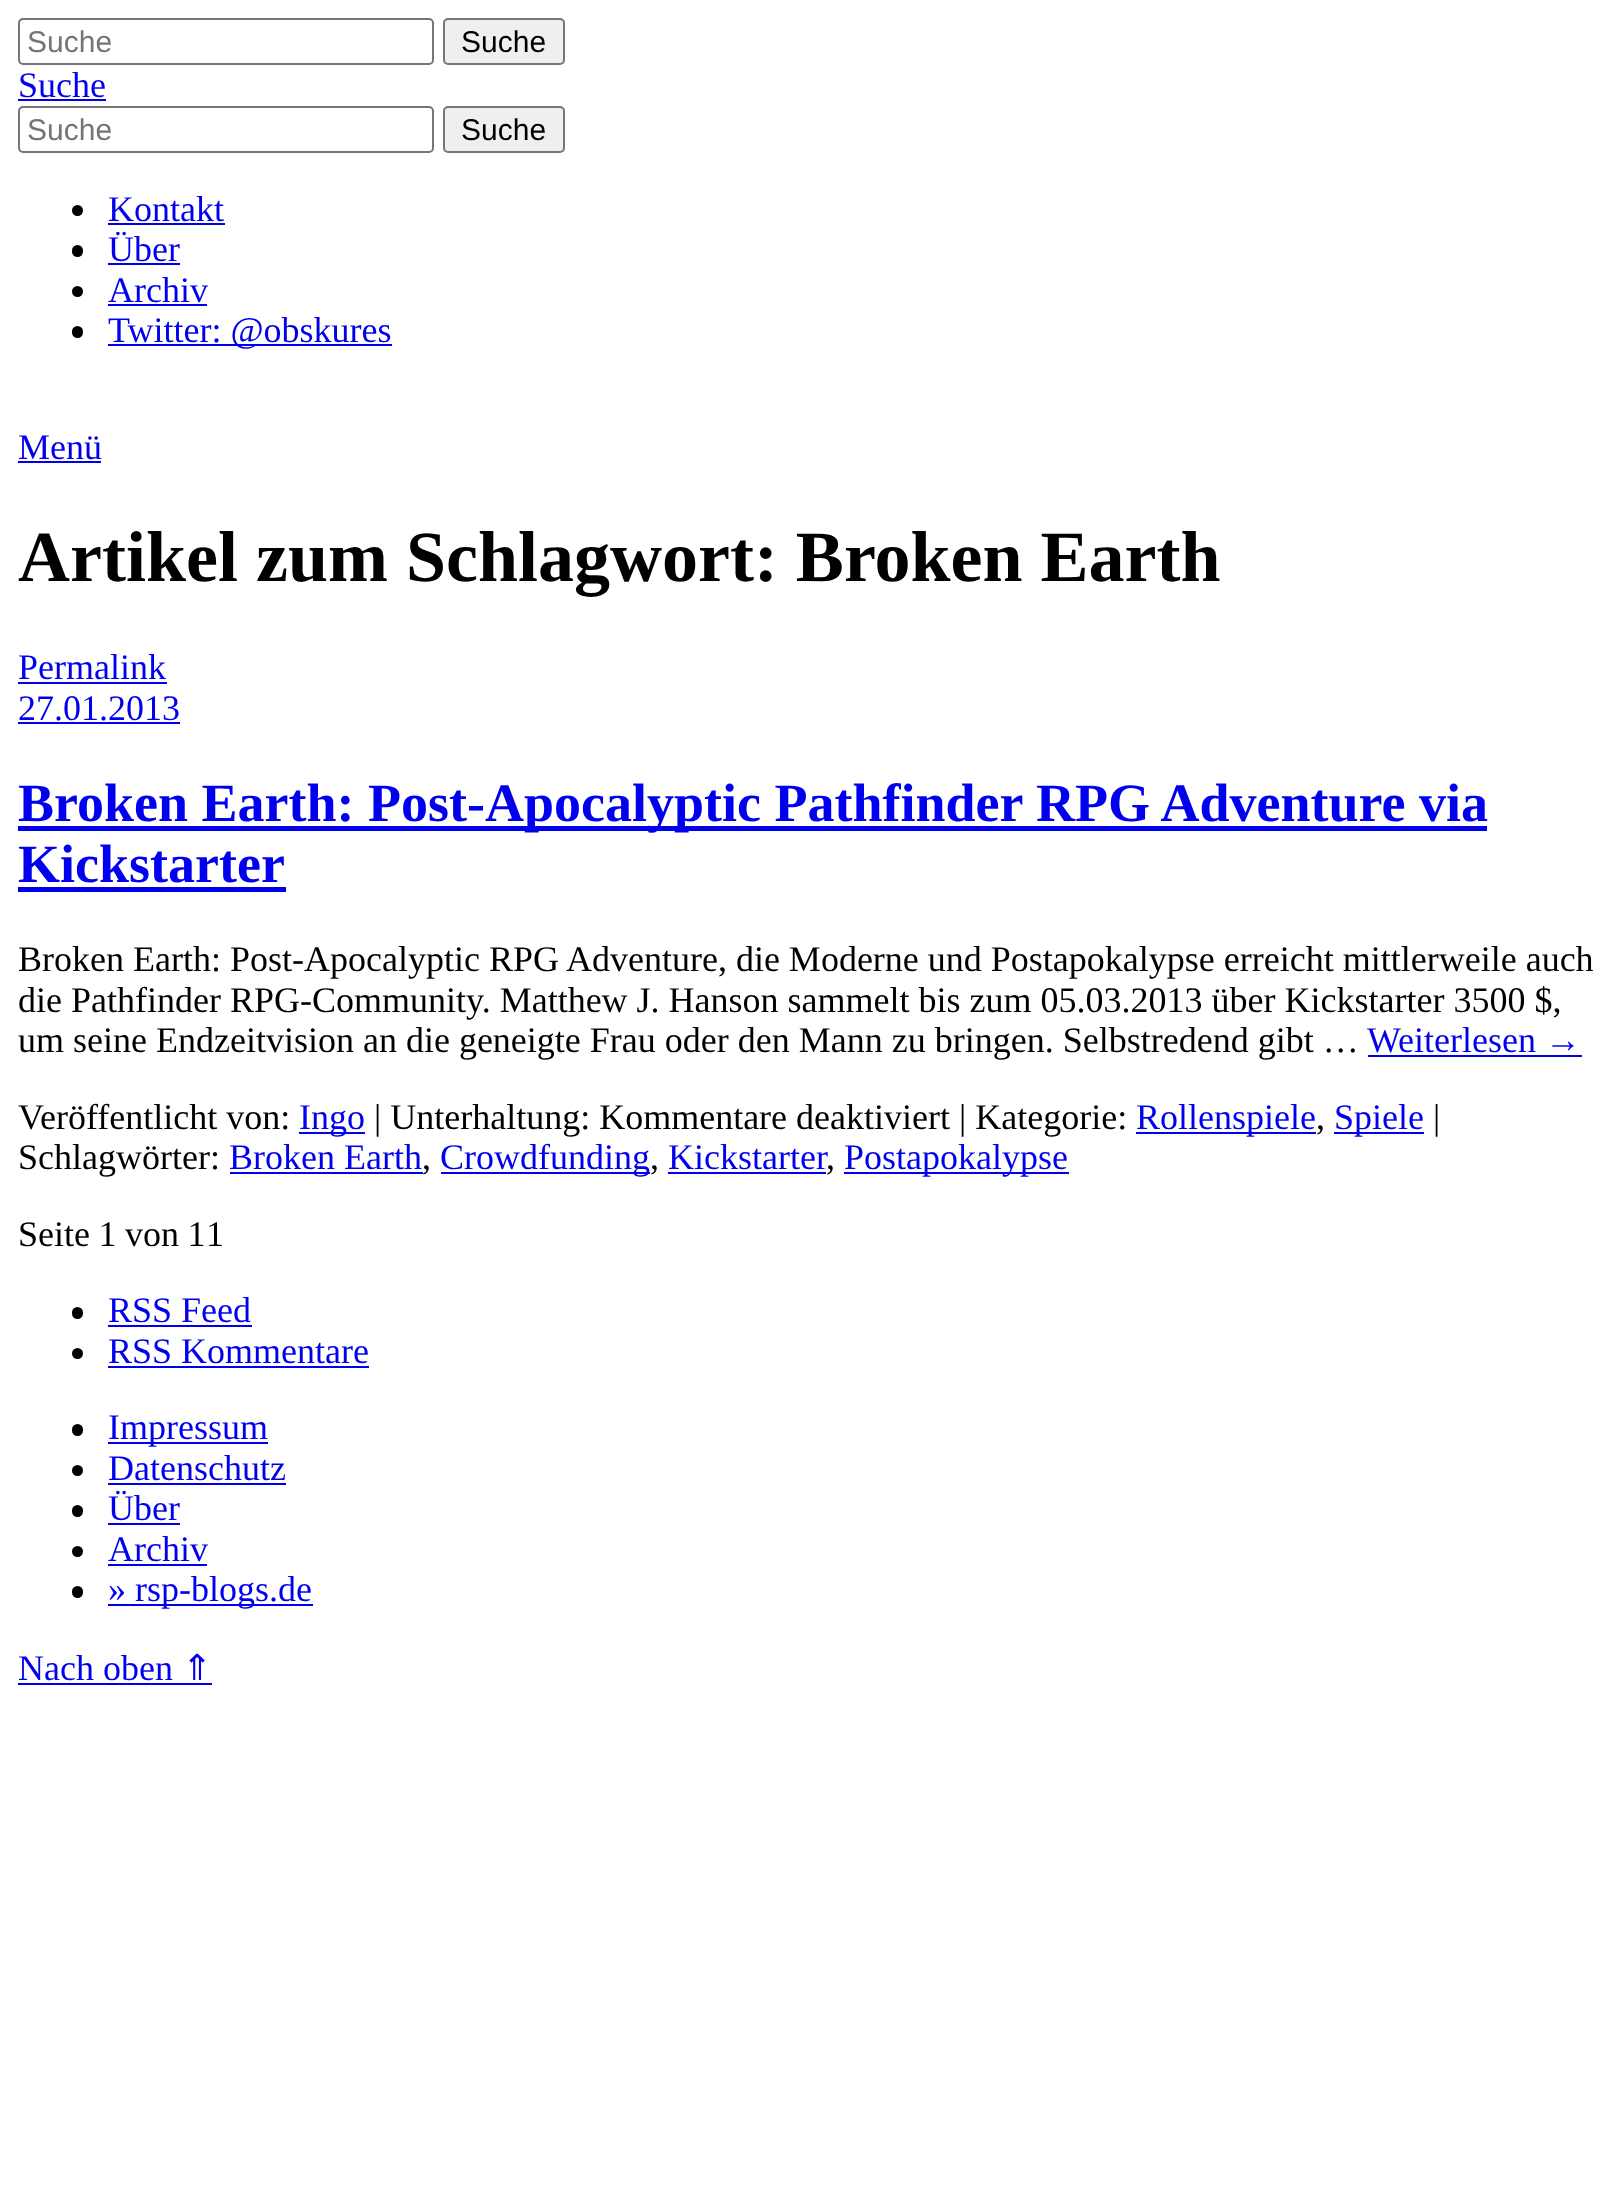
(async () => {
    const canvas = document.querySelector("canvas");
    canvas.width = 1619;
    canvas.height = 2212;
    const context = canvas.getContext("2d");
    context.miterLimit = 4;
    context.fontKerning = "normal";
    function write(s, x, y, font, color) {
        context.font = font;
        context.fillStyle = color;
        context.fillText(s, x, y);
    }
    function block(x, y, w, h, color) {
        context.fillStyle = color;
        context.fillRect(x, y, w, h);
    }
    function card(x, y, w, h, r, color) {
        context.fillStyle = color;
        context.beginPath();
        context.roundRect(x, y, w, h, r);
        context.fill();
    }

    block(0, 0, 1619, 2212, "rgb(255, 255, 255)");
    context.beginPath();
    context.roundRect(19, 19, 414, 45, 4);
    context.strokeStyle = "rgb(118, 118, 118)";
    context.lineWidth = 2;
    context.stroke();
    write("Suche", 27, 52, "30px Liberation Sans", "rgb(117, 117, 117)");
    context.fillStyle = "rgb(239, 239, 239)";
    context.beginPath();
    context.roundRect(444, 19, 120, 45, 4);
    context.fill();
    context.stroke();
    write("Suche", 461, 52, "30px Liberation Sans", "rgb(0, 0, 0)");
    write("Suche", 18, 97, "36px Liberation Serif", "rgb(0, 0, 238)");
    block(18, 99, 88, 2, "rgb(0, 0, 238)");
    context.beginPath();
    context.roundRect(19, 107, 414, 45, 4);
    context.stroke();
    write("Suche", 27, 140, "30px Liberation Sans", "rgb(117, 117, 117)");
    context.fillStyle = "rgb(239, 239, 239)";
    context.beginPath();
    context.roundRect(444, 107, 120, 45, 4);
    context.fill();
    context.stroke();
    write("Suche", 461, 140, "30px Liberation Sans", "rgb(0, 0, 0)");
    context.beginPath();
    context.arc(77.5, 210.5, 5.5, 0, Math.PI * 2);
    context.fill();
    write("Kontakt", 108, 221, "36px Liberation Serif", "rgb(0, 0, 238)");
    block(108, 223, 117, 2, "rgb(0, 0, 238)");
    card(72, 245, 11, 12, 5.5, "rgb(0, 0, 0)");
    write("Über", 108, 261, "36px Liberation Serif", "rgb(0, 0, 238)");
    block(108, 263, 72, 2, "rgb(0, 0, 238)");
    context.fillStyle = "rgb(0, 0, 0)";
    context.beginPath();
    context.arc(77.5, 291.5, 5.5, 0, Math.PI * 2);
    context.fill();
    write("Archiv", 108, 302, "36px Liberation Serif", "rgb(0, 0, 238)");
    block(108, 304, 99, 2, "rgb(0, 0, 238)");
    card(72, 326, 11, 12, 5.5, "rgb(0, 0, 0)");
    block(108, 344, 284, 2, "rgb(0, 0, 238)");
    write("Twitter: @obskures", 108, 342, "36px Liberation Serif", "rgb(0, 0, 238)");
    write("Menü", 18, 459, "36px Liberation Serif", "rgb(0, 0, 238)");
    block(18, 461, 83, 2, "rgb(0, 0, 238)");
    write("Artikel zum Schlagwort: Broken Earth", 18, 581, "bold 72px Liberation Serif", "rgb(0, 0, 0)");
    write("Permalink", 18, 679, "36px Liberation Serif", "rgb(0, 0, 238)");
    block(18, 682, 149, 2, "rgb(0, 0, 238)");
    write("27.01.2013", 18, 720, "36px Liberation Serif", "rgb(0, 0, 238)");
    block(18, 722, 162, 2, "rgb(0, 0, 238)");
    block(18, 826, 1469, 5, "rgb(0, 0, 238)");
    write("Broken Earth: Post-Apocalyptic Pathfinder RPG Adventure via", 18, 821, "bold 54px Liberation Serif", "rgb(0, 0, 238)");
    write("Kickstarter", 18, 882, "bold 54px Liberation Serif", "rgb(0, 0, 238)");
    block(18, 887, 268, 5, "rgb(0, 0, 238)");
    write("Broken Earth: Post-Apocalyptic RPG Adventure, die Moderne und Postapokalypse erreicht mittlerweile auch", 18, 971, "36px Liberation Serif", "rgb(0, 0, 0)");
    write("die Pathfinder RPG-Community. Matthew J. Hanson sammelt bis zum 05.03.2013 über Kickstarter 3500 $,", 18, 1012, "36px Liberation Serif", "rgb(0, 0, 0)");
    write("um seine Endzeitvision an die geneigte Frau oder den Mann zu bringen. Selbstredend gibt …", 18, 1052, "36px Liberation Serif", "rgb(0, 0, 0)");
    write("Weiterlesen →", 1367, 1052, "36px Liberation Serif", "rgb(0, 0, 238)");
    block(1368, 1055, 214, 2, "rgb(0, 0, 238)");
    write("Veröffentlicht von:", 18, 1129, "36px Liberation Serif", "rgb(0, 0, 0)");
    block(299, 1132, 66, 2, "rgb(0, 0, 238)");
    write("Ingo", 299, 1129, "36px Liberation Serif", "rgb(0, 0, 238)");
    write("| Unterhaltung: Kommentare deaktiviert | Kategorie:", 374, 1129, "36px Liberation Serif", "rgb(0, 0, 0)");
    block(1136, 1132, 180, 2, "rgb(0, 0, 238)");
    write("Rollenspiele", 1136, 1129, "36px Liberation Serif", "rgb(0, 0, 238)");
    write(",", 1316, 1129, "36px Liberation Serif", "rgb(0, 0, 0)");
    block(1334, 1132, 90, 2, "rgb(0, 0, 238)");
    write("Spiele", 1334, 1129, "36px Liberation Serif", "rgb(0, 0, 238)");
    write("|", 1433, 1129, "36px Liberation Serif", "rgb(0, 0, 0)");
    write("Schlagwörter:", 18, 1169, "36px Liberation Serif", "rgb(0, 0, 0)");
    write("Broken Earth", 229, 1169, "36px Liberation Serif", "rgb(0, 0, 238)");
    block(230, 1172, 193, 2, "rgb(0, 0, 238)");
    write(",", 422, 1169, "36px Liberation Serif", "rgb(0, 0, 0)");
    block(441, 1172, 209, 2, "rgb(0, 0, 238)");
    write("Crowdfunding", 440, 1169, "36px Liberation Serif", "rgb(0, 0, 238)");
    write(",", 650, 1169, "36px Liberation Serif", "rgb(0, 0, 0)");
    write("Kickstarter", 668, 1169, "36px Liberation Serif", "rgb(0, 0, 238)");
    block(668, 1172, 158, 2, "rgb(0, 0, 238)");
    write(",", 826, 1169, "36px Liberation Serif", "rgb(0, 0, 0)");
    block(844, 1172, 225, 2, "rgb(0, 0, 238)");
    write("Postapokalypse", 844, 1169, "36px Liberation Serif", "rgb(0, 0, 238)");
    context.wordSpacing = "-0.5px";
    write("Seite 1 von 1", 18, 1246, "36px Liberation Serif", "rgb(0, 0, 0)");
    context.wordSpacing = "0px";
    write("1", 206, 1246, "36px Liberation Serif", "rgb(0, 0, 0)");
    card(72, 1307, 11, 12, 5.5, "rgb(0, 0, 0)");
    write("RSS Feed", 108, 1322, "36px Liberation Serif", "rgb(0, 0, 238)");
    block(108, 1325, 144, 2, "rgb(0, 0, 238)");
    context.fillStyle = "rgb(0, 0, 0)";
    context.beginPath();
    context.arc(77.5, 1353.5, 5.5, 0, Math.PI * 2);
    context.fill();
    write("RSS Kommentare", 108, 1363, "36px Liberation Serif", "rgb(0, 0, 238)");
    block(108, 1366, 261, 2, "rgb(0, 0, 238)");
    card(72, 1424, 11, 12, 5.5, "rgb(0, 0, 0)");
    block(108, 1442, 160, 2, "rgb(0, 0, 238)");
    write("Impressum", 108, 1439, "36px Liberation Serif", "rgb(0, 0, 238)");
    context.fillStyle = "rgb(0, 0, 0)";
    context.beginPath();
    context.arc(77.5, 1470.5, 5.5, 0, Math.PI * 2);
    context.fill();
    write("Datenschutz", 108, 1480, "36px Liberation Serif", "rgb(0, 0, 238)");
    block(108, 1483, 178, 2, "rgb(0, 0, 238)");
    card(72, 1505, 11, 12, 5.5, "rgb(0, 0, 0)");
    write("Über", 108, 1520, "36px Liberation Serif", "rgb(0, 0, 238)");
    block(108, 1523, 72, 2, "rgb(0, 0, 238)");
    context.fillStyle = "rgb(0, 0, 0)";
    context.beginPath();
    context.arc(77.5, 1551.5, 5.5, 0, Math.PI * 2);
    context.fill();
    write("Archiv", 108, 1561, "36px Liberation Serif", "rgb(0, 0, 238)");
    block(108, 1564, 99, 2, "rgb(0, 0, 238)");
    card(72, 1586, 11, 12, 5.5, "rgb(0, 0, 0)");
    block(108, 1604, 205, 2, "rgb(0, 0, 238)");
    write("» rsp-blogs.de", 108, 1601, "36px Liberation Serif", "rgb(0, 0, 238)");
    write("Nach oben", 18, 1680, "36px Liberation Serif", "rgb(0, 0, 238)");
    block(18, 1683, 194, 2, "rgb(0, 0, 238)");
    write("⇑", 182, 1680, "36px DejaVu Sans", "rgb(0, 0, 238)");
})();
